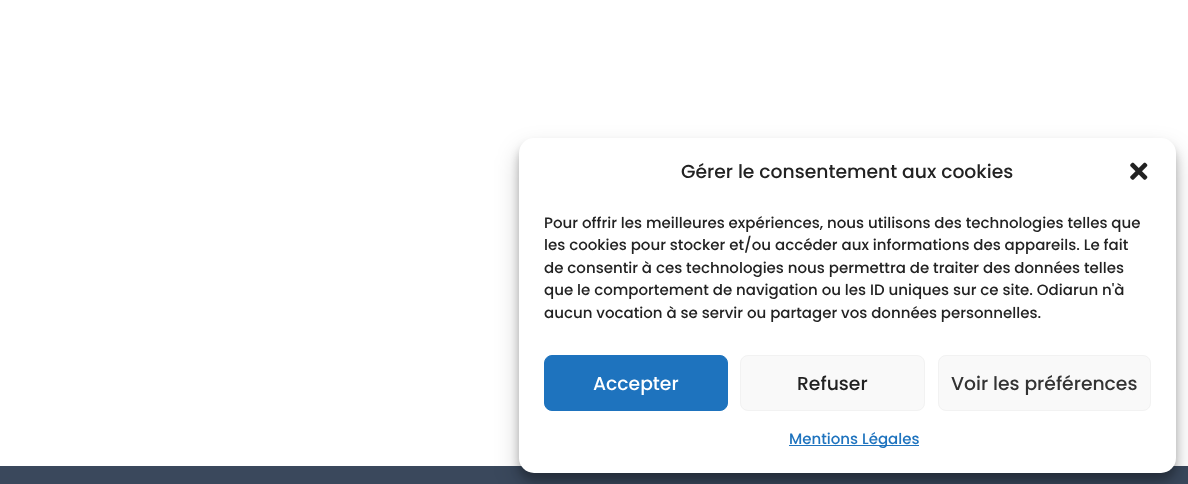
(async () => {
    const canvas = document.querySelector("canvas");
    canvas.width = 1188;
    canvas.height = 484;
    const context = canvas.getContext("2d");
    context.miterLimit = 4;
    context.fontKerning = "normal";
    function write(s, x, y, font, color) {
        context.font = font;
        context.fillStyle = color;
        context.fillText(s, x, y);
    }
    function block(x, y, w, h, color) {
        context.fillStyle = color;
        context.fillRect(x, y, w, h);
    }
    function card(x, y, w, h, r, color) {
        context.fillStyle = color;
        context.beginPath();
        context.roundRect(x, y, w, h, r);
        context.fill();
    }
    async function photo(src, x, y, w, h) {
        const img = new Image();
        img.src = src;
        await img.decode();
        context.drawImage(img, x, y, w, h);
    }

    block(0, 0, 1188, 484, "rgb(255, 255, 255)");
    block(0, 466, 1188, 18, "rgb(58, 72, 92)");
    context.fillStyle = "rgba(0, 0, 0, 0.23)";
    context.filter = "blur(4px)";
    context.beginPath();
    context.roundRect(519, 145, 657, 335, 15);
    context.fill();
    context.filter = "none";
    context.fillStyle = "rgba(0, 0, 0, 0.19)";
    context.filter = "blur(12.5px)";
    context.beginPath();
    context.roundRect(519, 150, 657, 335, 15);
    context.fill();
    context.filter = "none";
    card(519, 138, 657, 335, 15, "rgb(255, 255, 255)");
    write("Gérer le consentement aux cookies", 681, 178, "500 18.75px Poppins", "rgb(34, 34, 34)");
    await photo("media/1.png", 1130, 162, 18, 18);
    write("Pour offrir les meilleures expériences, nous utilisons des technologies telles que", 544, 228, "500 15px Poppins", "rgb(34, 34, 34)");
    write("les cookies pour stocker et/ou accéder aux informations des appareils. Le fait", 544, 250, "500 15px Poppins", "rgb(34, 34, 34)");
    write("de consentir à ces technologies nous permettra de traiter des données telles", 544, 273, "500 15px Poppins", "rgb(34, 34, 34)");
    write("que le comportement de navigation ou les ID uniques sur ce site. Odiarun n'à", 544, 295, "500 15px Poppins", "rgb(34, 34, 34)");
    write("aucun vocation à se servir ou partager vos données personnelles.", 544, 318, "500 15px Poppins", "rgb(34, 34, 34)");
    context.fillStyle = "rgb(30, 115, 190)";
    context.beginPath();
    context.roundRect(544.5, 355.5, 183, 55, 7.5);
    context.fill();
    context.strokeStyle = "rgb(30, 115, 190)";
    context.stroke();
    write("Accepter", 593, 390, "500 18.75px Poppins", "rgb(255, 255, 255)");
    context.fillStyle = "rgb(249, 249, 249)";
    context.beginPath();
    context.roundRect(740.5, 355.5, 184, 55, 7.5);
    context.fill();
    context.strokeStyle = "rgb(242, 242, 242)";
    context.stroke();
    write("Refuser", 797, 390, "500 18.75px Poppins", "rgb(34, 34, 34)");
    context.fillStyle = "rgb(249, 249, 249)";
    context.beginPath();
    context.roundRect(938.5, 355.5, 212, 55, 7.5);
    context.fill();
    context.stroke();
    write("Voir les préférences", 951, 390, "500 18.75px Poppins", "rgb(51, 51, 51)");
    block(789, 445, 130, 1, "rgb(30, 115, 190)");
    write("Mentions Légales", 789, 444, "500 15px Poppins", "rgb(30, 115, 190)");
})();
